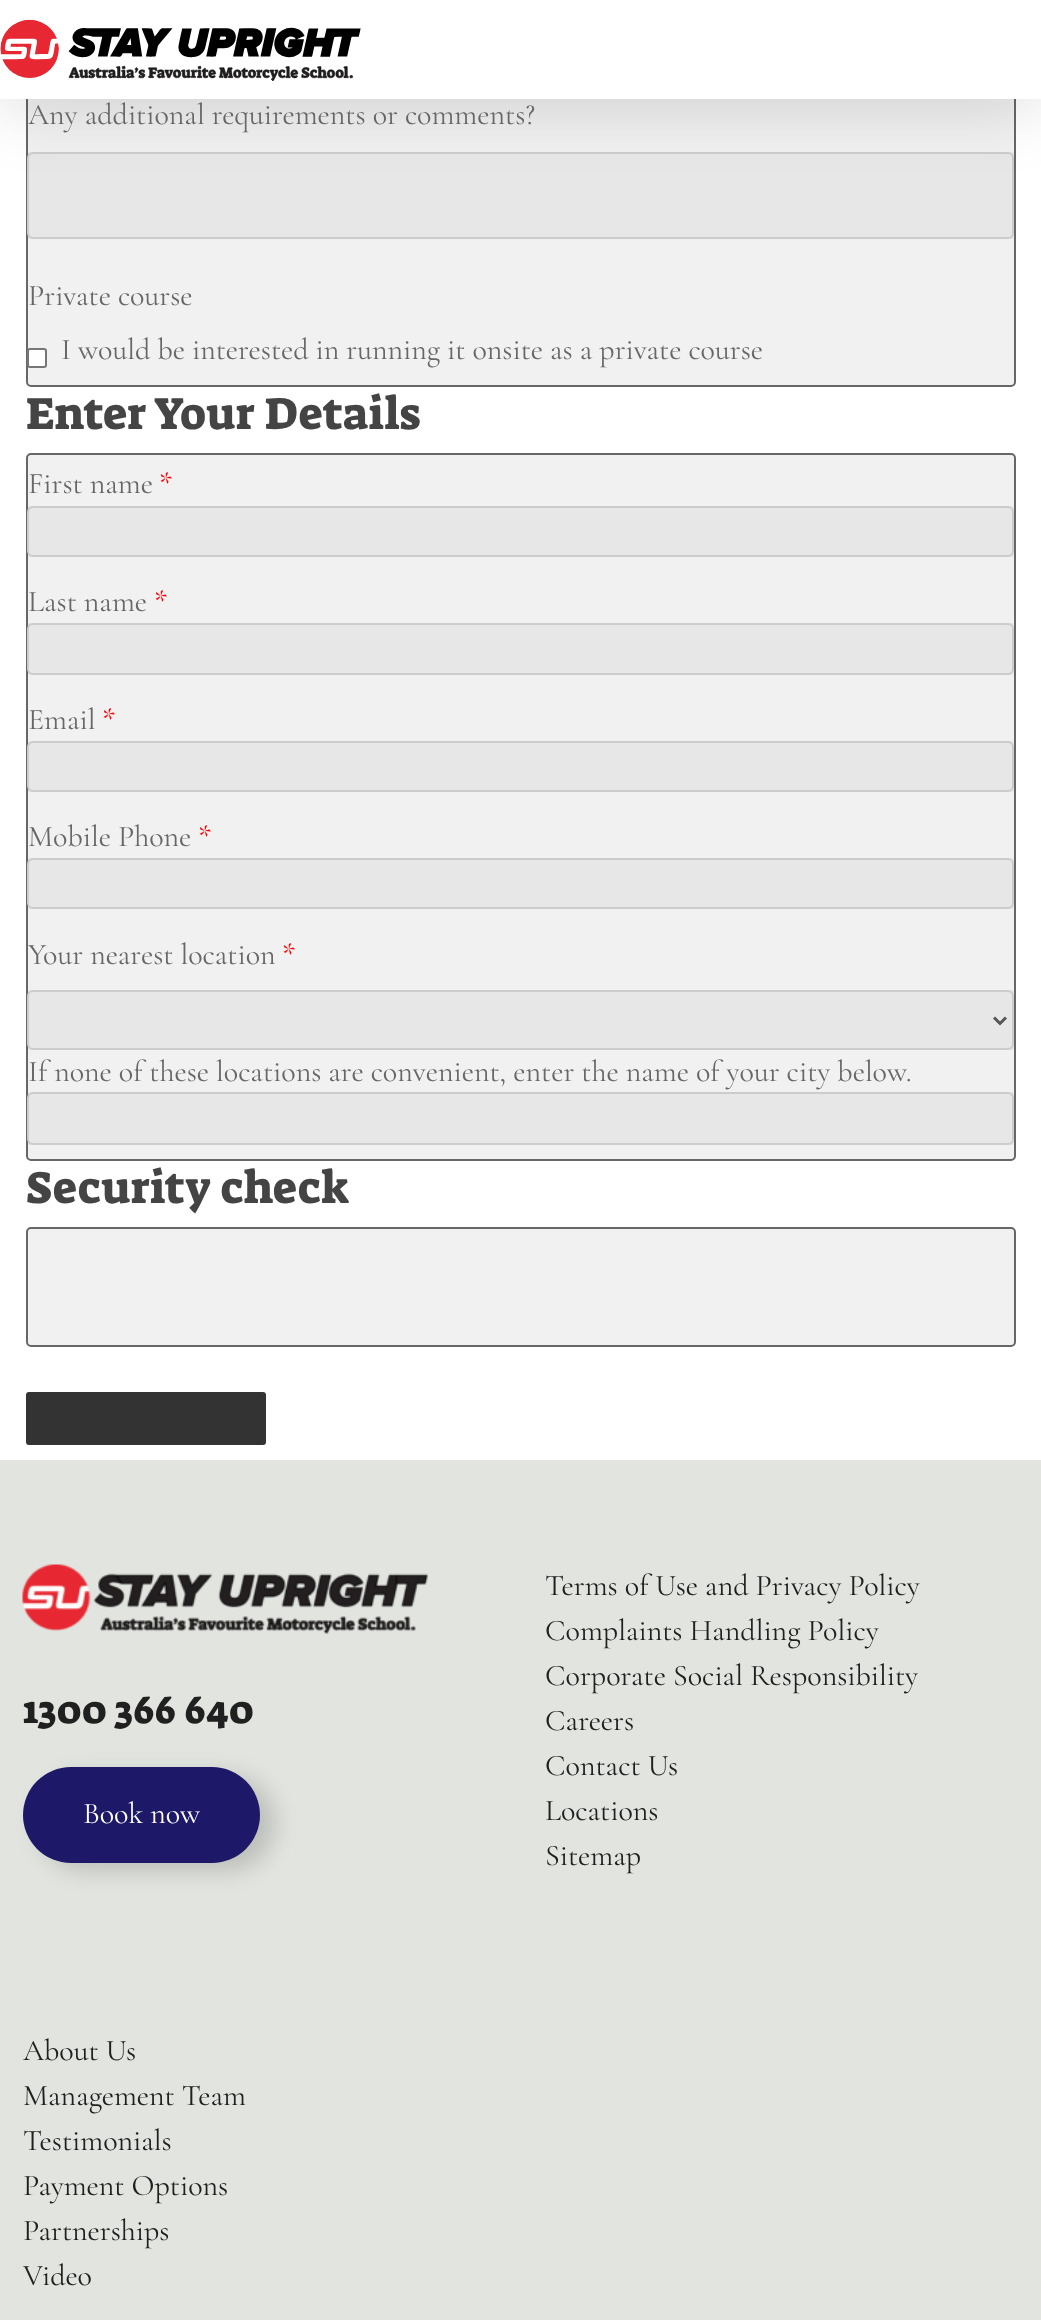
(async () => {
    const canvas = document.querySelector("canvas");
    canvas.width = 1041;
    canvas.height = 2320;
    const context = canvas.getContext("2d");
    context.miterLimit = 4;
    context.fontKerning = "normal";
    function write(s, x, y, font, color) {
        context.font = font;
        context.fillStyle = color;
        context.fillText(s, x, y);
    }
    function block(x, y, w, h, color) {
        context.fillStyle = color;
        context.fillRect(x, y, w, h);
    }
    function card(x, y, w, h, r, color) {
        context.fillStyle = color;
        context.beginPath();
        context.roundRect(x, y, w, h, r);
        context.fill();
    }
    async function photo(src, x, y, w, h) {
        const img = new Image();
        img.src = src;
        await img.decode();
        context.drawImage(img, x, y, w, h);
    }

    block(0, 0, 1041, 2320, "rgb(255, 255, 255)");
    context.fillStyle = "rgb(241, 241, 241)";
    context.beginPath();
    context.roundRect(27, -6, 988, 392, 4);
    context.fill();
    context.strokeStyle = "rgb(103, 103, 103)";
    context.lineWidth = 2;
    context.stroke();
    block(27, 152, 987, 87, "rgba(0, 0, 0, 0.04)");
    context.beginPath();
    context.roundRect(28, 153, 985, 85, 5);
    context.strokeStyle = "rgb(204, 204, 204)";
    context.stroke();
    context.fillStyle = "rgba(0, 0, 0, 0.15)";
    context.filter = "blur(34px)";
    context.beginPath();
    context.rect(0, 5, 1041, 99);
    context.fill();
    context.filter = "none";
    block(0, 0, 1041, 99, "rgb(255, 255, 255)");
    await photo("media/1.png", 0, 19, 361, 62);
    write("Any additional requirements or comments?", 28, 124, "30px Cormorant Garamond", "rgb(103, 103, 103)");
    write("Private course", 28, 305, "30px Cormorant Garamond", "rgb(103, 103, 103)");
    context.fillStyle = "rgb(255, 255, 255)";
    context.beginPath();
    context.roundRect(28, 349, 18, 18, 2);
    context.fill();
    context.strokeStyle = "rgb(118, 118, 118)";
    context.stroke();
    write("I would be interested in running it onsite as a private course", 61, 359, "30px Cormorant Garamond", "rgb(103, 103, 103)");
    write("Enter Your Details", 26, 429, "45.5px Suez One", "rgb(68, 68, 68)");
    context.fillStyle = "rgb(241, 241, 241)";
    context.beginPath();
    context.roundRect(27, 454, 988, 706, 4);
    context.fill();
    context.strokeStyle = "rgb(103, 103, 103)";
    context.stroke();
    write("First name", 28, 493, "30px Cormorant Garamond", "rgb(103, 103, 103)");
    write("*", 159, 493, "30px Cormorant Garamond", "rgb(255, 0, 0)");
    block(27, 506, 987, 51, "rgba(0, 0, 0, 0.04)");
    context.beginPath();
    context.roundRect(28, 507, 985, 49, 5);
    context.strokeStyle = "rgb(204, 204, 204)";
    context.stroke();
    write("Last name", 28, 611, "30px Cormorant Garamond", "rgb(103, 103, 103)");
    write("*", 154, 611, "30px Cormorant Garamond", "rgb(255, 0, 0)");
    block(27, 623, 987, 52, "rgba(0, 0, 0, 0.04)");
    context.beginPath();
    context.roundRect(28, 624, 985, 50, 5);
    context.stroke();
    write("Email", 28, 729, "30px Cormorant Garamond", "rgb(103, 103, 103)");
    write("*", 102, 729, "30px Cormorant Garamond", "rgb(255, 0, 0)");
    block(27, 741, 987, 51, "rgba(0, 0, 0, 0.04)");
    context.beginPath();
    context.roundRect(28, 742, 985, 49, 5);
    context.stroke();
    write("Mobile Phone", 28, 846, "30px Cormorant Garamond", "rgb(103, 103, 103)");
    write("*", 198, 846, "30px Cormorant Garamond", "rgb(255, 0, 0)");
    block(27, 858, 987, 51, "rgba(0, 0, 0, 0.04)");
    context.beginPath();
    context.roundRect(28, 859, 985, 49, 5);
    context.stroke();
    write("Your nearest location", 28, 964, "30px Cormorant Garamond", "rgb(103, 103, 103)");
    write("*", 282, 964, "30px Cormorant Garamond", "rgb(255, 0, 0)");
    block(27, 990, 987, 60, "rgba(0, 0, 0, 0.04)");
    context.beginPath();
    context.roundRect(28, 991, 985, 58, 5);
    context.stroke();
    context.beginPath();
    context.moveTo(994, 1017.5);
    context.lineTo(1000, 1023.5);
    context.lineTo(1006, 1017.5);
    context.strokeStyle = "rgb(85, 85, 85)";
    context.lineWidth = 3;
    context.stroke();
    write("If none of these locations are convenient, enter the name of your city below.", 28, 1081, "30px Cormorant Garamond", "rgb(103, 103, 103)");
    block(27, 1092, 987, 53, "rgba(0, 0, 0, 0.04)");
    context.beginPath();
    context.roundRect(28, 1093, 985, 51, 5);
    context.strokeStyle = "rgb(204, 204, 204)";
    context.lineWidth = 2;
    context.stroke();
    write("Security check", 26, 1203, "45.5px Suez One", "rgb(68, 68, 68)");
    context.fillStyle = "rgb(241, 241, 241)";
    context.beginPath();
    context.roundRect(27, 1228, 988, 118, 4);
    context.fill();
    context.strokeStyle = "rgb(103, 103, 103)";
    context.stroke();
    card(26, 1392, 240, 53, 3, "rgb(51, 51, 51)");
    block(0, 1460, 1041, 860, "rgb(225, 228, 223)");
    await photo("media/2.png", 22, 1564, 406, 70);
    write("1300 366 640", 23, 1723, "38.5px Suez One", "rgb(32, 32, 32)");
    context.fillStyle = "rgba(0, 0, 0, 0.16)";
    context.filter = "blur(11px)";
    context.beginPath();
    context.roundRect(38, 1775, 237, 96, 48);
    context.fill();
    context.filter = "none";
    card(23, 1767, 237, 96, 48, "rgb(30, 24, 105)");
    write("Book now", 83, 1823, "30px Cormorant Garamond", "rgb(255, 255, 255)");
    write("Terms of Use and Privacy Policy", 545, 1595, "30px Cormorant Garamond", "rgb(32, 32, 32)");
    write("Complaints Handling Policy", 545, 1640, "30px Cormorant Garamond", "rgb(32, 32, 32)");
    write("Corporate Social Responsibility", 545, 1685, "30px Cormorant Garamond", "rgb(32, 32, 32)");
    write("Careers", 545, 1730, "30px Cormorant Garamond", "rgb(32, 32, 32)");
    write("Contact Us", 545, 1775, "30px Cormorant Garamond", "rgb(32, 32, 32)");
    write("Locations", 545, 1820, "30px Cormorant Garamond", "rgb(32, 32, 32)");
    write("Sitemap", 545, 1865, "30px Cormorant Garamond", "rgb(32, 32, 32)");
    write("About Us", 23, 2060, "30px Cormorant Garamond", "rgb(32, 32, 32)");
    write("Management Team", 23, 2105, "30px Cormorant Garamond", "rgb(32, 32, 32)");
    write("Testimonials", 23, 2150, "30px Cormorant Garamond", "rgb(32, 32, 32)");
    write("Payment Options", 23, 2195, "30px Cormorant Garamond", "rgb(32, 32, 32)");
    write("Partnerships", 23, 2240, "30px Cormorant Garamond", "rgb(32, 32, 32)");
    write("Video", 23, 2285, "30px Cormorant Garamond", "rgb(32, 32, 32)");
})();
